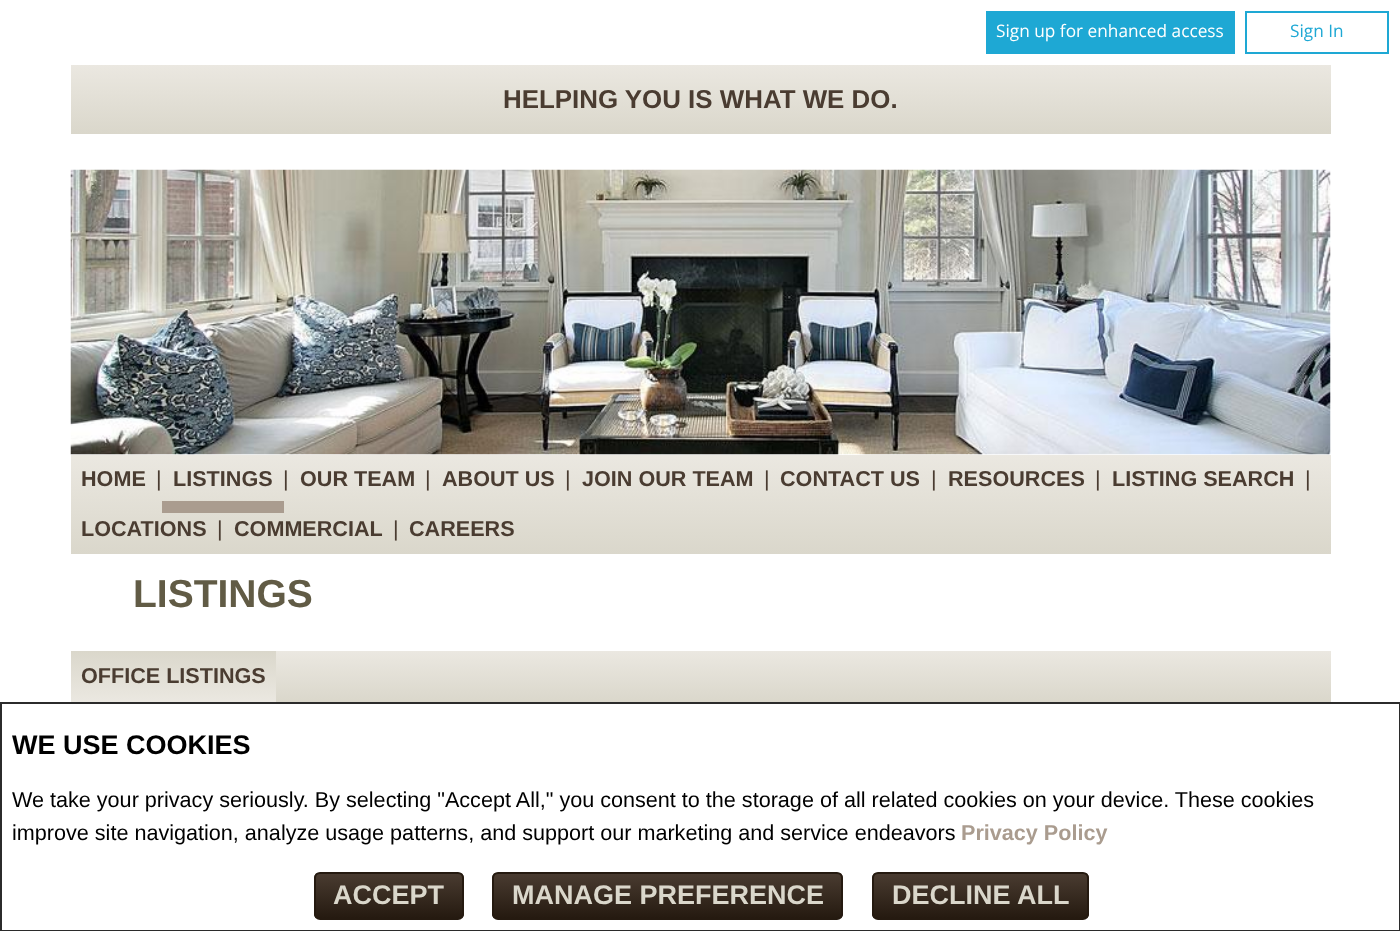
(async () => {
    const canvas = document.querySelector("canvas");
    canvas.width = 1400;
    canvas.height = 931;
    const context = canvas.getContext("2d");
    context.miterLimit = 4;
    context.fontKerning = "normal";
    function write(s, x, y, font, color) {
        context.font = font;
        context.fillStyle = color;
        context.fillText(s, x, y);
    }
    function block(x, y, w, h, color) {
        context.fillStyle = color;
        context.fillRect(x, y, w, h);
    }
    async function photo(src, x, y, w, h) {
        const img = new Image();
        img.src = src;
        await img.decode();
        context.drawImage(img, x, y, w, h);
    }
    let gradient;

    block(0, 0, 1400, 931, "rgb(255, 255, 255)");
    block(986, 11, 249, 43, "rgb(30, 168, 212)");
    write("Sign up for enhanced access", 996, 37, "17.25px Open Sans", "rgb(255, 255, 255)");
    context.strokeStyle = "rgb(30, 168, 212)";
    context.lineWidth = 2;
    context.strokeRect(1246, 12, 142, 41);
    write("Sign In", 1290, 37, "17.25px Open Sans", "rgb(30, 168, 212)");
    gradient = context.createLinearGradient(701, 64, 701, 134);
    gradient.addColorStop(0, "rgb(235, 232, 225)");
    gradient.addColorStop(1, "rgb(218, 215, 203)");
    context.fillStyle = gradient;
    context.fillRect(71, 65, 1260, 69);
    write("HELPING YOU IS WHAT WE DO.", 503, 108, "bold 25.9px Liberation Sans", "rgb(74, 60, 49)");
    await photo("media/1.png", 70, 169, 1261, 286);
    gradient = context.createLinearGradient(701, 454, 701, 554);
    gradient.addColorStop(0, "rgb(235, 232, 225)");
    gradient.addColorStop(1, "rgb(218, 215, 203)");
    context.fillStyle = gradient;
    context.fillRect(71, 455, 1260, 99);
    write("HOME", 81, 486, "bold 21.6px Liberation Sans", "rgb(74, 60, 49)");
    write("|", 156, 486, "21.6px Liberation Sans", "rgb(74, 60, 49)");
    write("LISTINGS", 173, 486, "bold 21.6px Liberation Sans", "rgb(74, 60, 49)");
    block(162, 501, 122, 12, "rgb(170, 156, 143)");
    write("|", 283, 486, "21.6px Liberation Sans", "rgb(74, 60, 49)");
    write("OUR TEAM", 300, 486, "bold 21.6px Liberation Sans", "rgb(74, 60, 49)");
    write("|", 425, 486, "21.6px Liberation Sans", "rgb(74, 60, 49)");
    write("ABOUT US", 442, 486, "bold 21.6px Liberation Sans", "rgb(74, 60, 49)");
    write("|", 565, 486, "21.6px Liberation Sans", "rgb(74, 60, 49)");
    write("JOIN OUR TEAM", 582, 486, "bold 21.6px Liberation Sans", "rgb(74, 60, 49)");
    write("|", 764, 486, "21.6px Liberation Sans", "rgb(74, 60, 49)");
    write("CONTACT US", 780, 486, "bold 21.6px Liberation Sans", "rgb(74, 60, 49)");
    write("|", 931, 486, "21.6px Liberation Sans", "rgb(74, 60, 49)");
    write("RESOURCES", 948, 486, "bold 21.6px Liberation Sans", "rgb(74, 60, 49)");
    write("|", 1095, 486, "21.6px Liberation Sans", "rgb(74, 60, 49)");
    write("LISTING SEARCH", 1112, 486, "bold 21.6px Liberation Sans", "rgb(74, 60, 49)");
    write("|", 1305, 486, "21.6px Liberation Sans", "rgb(74, 60, 49)");
    write("LOCATIONS", 81, 536, "bold 21.6px Liberation Sans", "rgb(74, 60, 49)");
    write("|", 217, 536, "21.6px Liberation Sans", "rgb(74, 60, 49)");
    write("COMMERCIAL", 234, 536, "bold 21.6px Liberation Sans", "rgb(74, 60, 49)");
    write("|", 393, 536, "21.6px Liberation Sans", "rgb(74, 60, 49)");
    write("CAREERS", 409, 536, "bold 21.6px Liberation Sans", "rgb(74, 60, 49)");
    write("LISTINGS", 133, 607, "bold 39px Liberation Sans", "rgb(97, 91, 69)");
    gradient = context.createLinearGradient(701, 651, 701, 702);
    gradient.addColorStop(0, "rgb(235, 232, 225)");
    gradient.addColorStop(1, "rgb(218, 215, 203)");
    context.fillStyle = gradient;
    context.fillRect(276, 651, 1055, 51);
    gradient = context.createLinearGradient(173, 651, 173, 702);
    gradient.addColorStop(0, "rgb(218, 215, 203)");
    gradient.addColorStop(1, "rgb(235, 232, 225)");
    context.fillStyle = gradient;
    context.fillRect(71, 651, 205, 51);
    write("OFFICE LISTINGS", 81, 683, "bold 21.6px Liberation Sans", "rgb(74, 60, 49)");
    context.strokeStyle = "rgb(43, 43, 43)";
    context.strokeRect(1, 703, 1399, 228);
    write("WE USE COOKIES", 12, 754, "bold 27px Liberation Sans", "rgb(0, 0, 0)");
    write("We take your privacy seriously. By selecting \"Accept All,\" you consent to the storage of all related cookies on your device. These cookies", 12, 807, "21.6px Liberation Sans", "rgb(0, 0, 0)");
    write("improve site navigation, analyze usage patterns, and support our marketing and service endeavors", 12, 840, "21.6px Liberation Sans", "rgb(0, 0, 0)");
    write("Privacy Policy", 961, 840, "bold 21.6px Liberation Sans", "rgb(170, 156, 143)");
    context.save();
    context.beginPath();
    context.roundRect(314, 872, 150, 48, 6);
    context.clip();
    gradient = context.createLinearGradient(389, 873, 389, 918);
    gradient.addColorStop(0, "rgb(74, 60, 49)");
    gradient.addColorStop(1, "rgb(37, 26, 16)");
    context.fillStyle = gradient;
    context.fillRect(314, 873, 150, 45);
    context.restore();
    context.beginPath();
    context.roundRect(315, 873, 148, 46, 5);
    context.strokeStyle = "rgb(37, 26, 16)";
    context.stroke();
    write("ACCEPT", 333, 904, "bold 27px Liberation Sans", "rgb(218, 215, 203)");
    context.save();
    context.beginPath();
    context.roundRect(492, 872, 351, 48, 6);
    context.clip();
    gradient = context.createLinearGradient(668, 873, 668, 918);
    gradient.addColorStop(0, "rgb(74, 60, 49)");
    gradient.addColorStop(1, "rgb(37, 26, 16)");
    context.fillStyle = gradient;
    context.fillRect(492, 873, 351, 45);
    context.restore();
    context.beginPath();
    context.roundRect(493, 873, 349, 46, 5);
    context.stroke();
    write("MANAGE PREFERENCE", 512, 904, "bold 27px Liberation Sans", "rgb(218, 215, 203)");
    context.save();
    context.beginPath();
    context.roundRect(872, 872, 217, 48, 6);
    context.clip();
    gradient = context.createLinearGradient(980, 873, 980, 918);
    gradient.addColorStop(0, "rgb(74, 60, 49)");
    gradient.addColorStop(1, "rgb(37, 26, 16)");
    context.fillStyle = gradient;
    context.fillRect(872, 873, 217, 45);
    context.restore();
    context.beginPath();
    context.roundRect(873, 873, 215, 46, 5);
    context.stroke();
    write("DECLINE ALL", 892, 904, "bold 27px Liberation Sans", "rgb(218, 215, 203)");
})();
